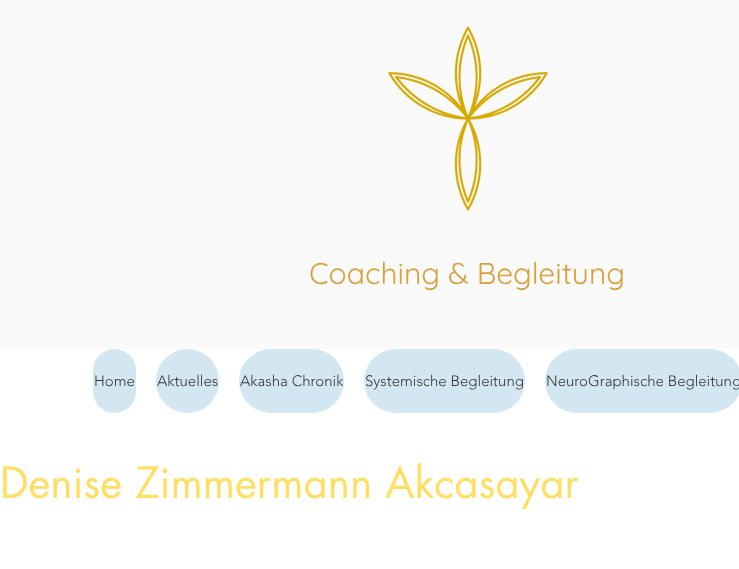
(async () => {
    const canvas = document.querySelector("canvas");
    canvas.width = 739;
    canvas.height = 569;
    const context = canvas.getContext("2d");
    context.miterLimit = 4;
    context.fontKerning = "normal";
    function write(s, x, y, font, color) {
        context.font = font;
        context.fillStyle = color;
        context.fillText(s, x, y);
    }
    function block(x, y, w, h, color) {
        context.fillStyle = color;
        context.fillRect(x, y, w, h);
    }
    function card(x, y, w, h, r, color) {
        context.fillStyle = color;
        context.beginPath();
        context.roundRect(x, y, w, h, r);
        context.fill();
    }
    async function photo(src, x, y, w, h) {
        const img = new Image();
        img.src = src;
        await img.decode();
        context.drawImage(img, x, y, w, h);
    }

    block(0, 0, 739, 569, "rgb(255, 255, 255)");
    block(0, 0, 739, 349, "rgb(250, 250, 250)");
    await photo("media/1.png", 388, 26, 160, 185);
    write("Coaching & Begleitung", 309, 284, "30px Quicksand", "rgb(217, 160, 60)");
    card(93, 349, 43, 64, 21.5, "rgb(211, 231, 242)");
    write("Home", 94, 386, "300 15px 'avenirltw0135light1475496'", "rgb(56, 56, 56)");
    card(156, 349, 63, 64, 31.5, "rgb(211, 231, 242)");
    write("Aktuelles", 157, 386, "300 15px 'avenirltw0135light1475496'", "rgb(56, 56, 56)");
    card(239, 349, 105, 64, 32, "rgb(211, 231, 242)");
    write("Akasha Chronik", 240, 386, "300 15px 'avenirltw0135light1475496'", "rgb(56, 56, 56)");
    card(364, 349, 161, 64, 32, "rgb(211, 231, 242)");
    write("Systemische Begleitung", 365, 386, "300 15px 'avenirltw0135light1475496'", "rgb(56, 56, 56)");
    card(545, 349, 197, 64, 32, "rgb(211, 231, 242)");
    write("NeuroGraphische Begleitung", 546, 386, "300 15px 'avenirltw0135light1475496'", "rgb(56, 56, 56)");
    write("Denise Zimmermann Akcasayar", 0, 498, "42px futura", "rgb(255, 223, 97)");
})();
